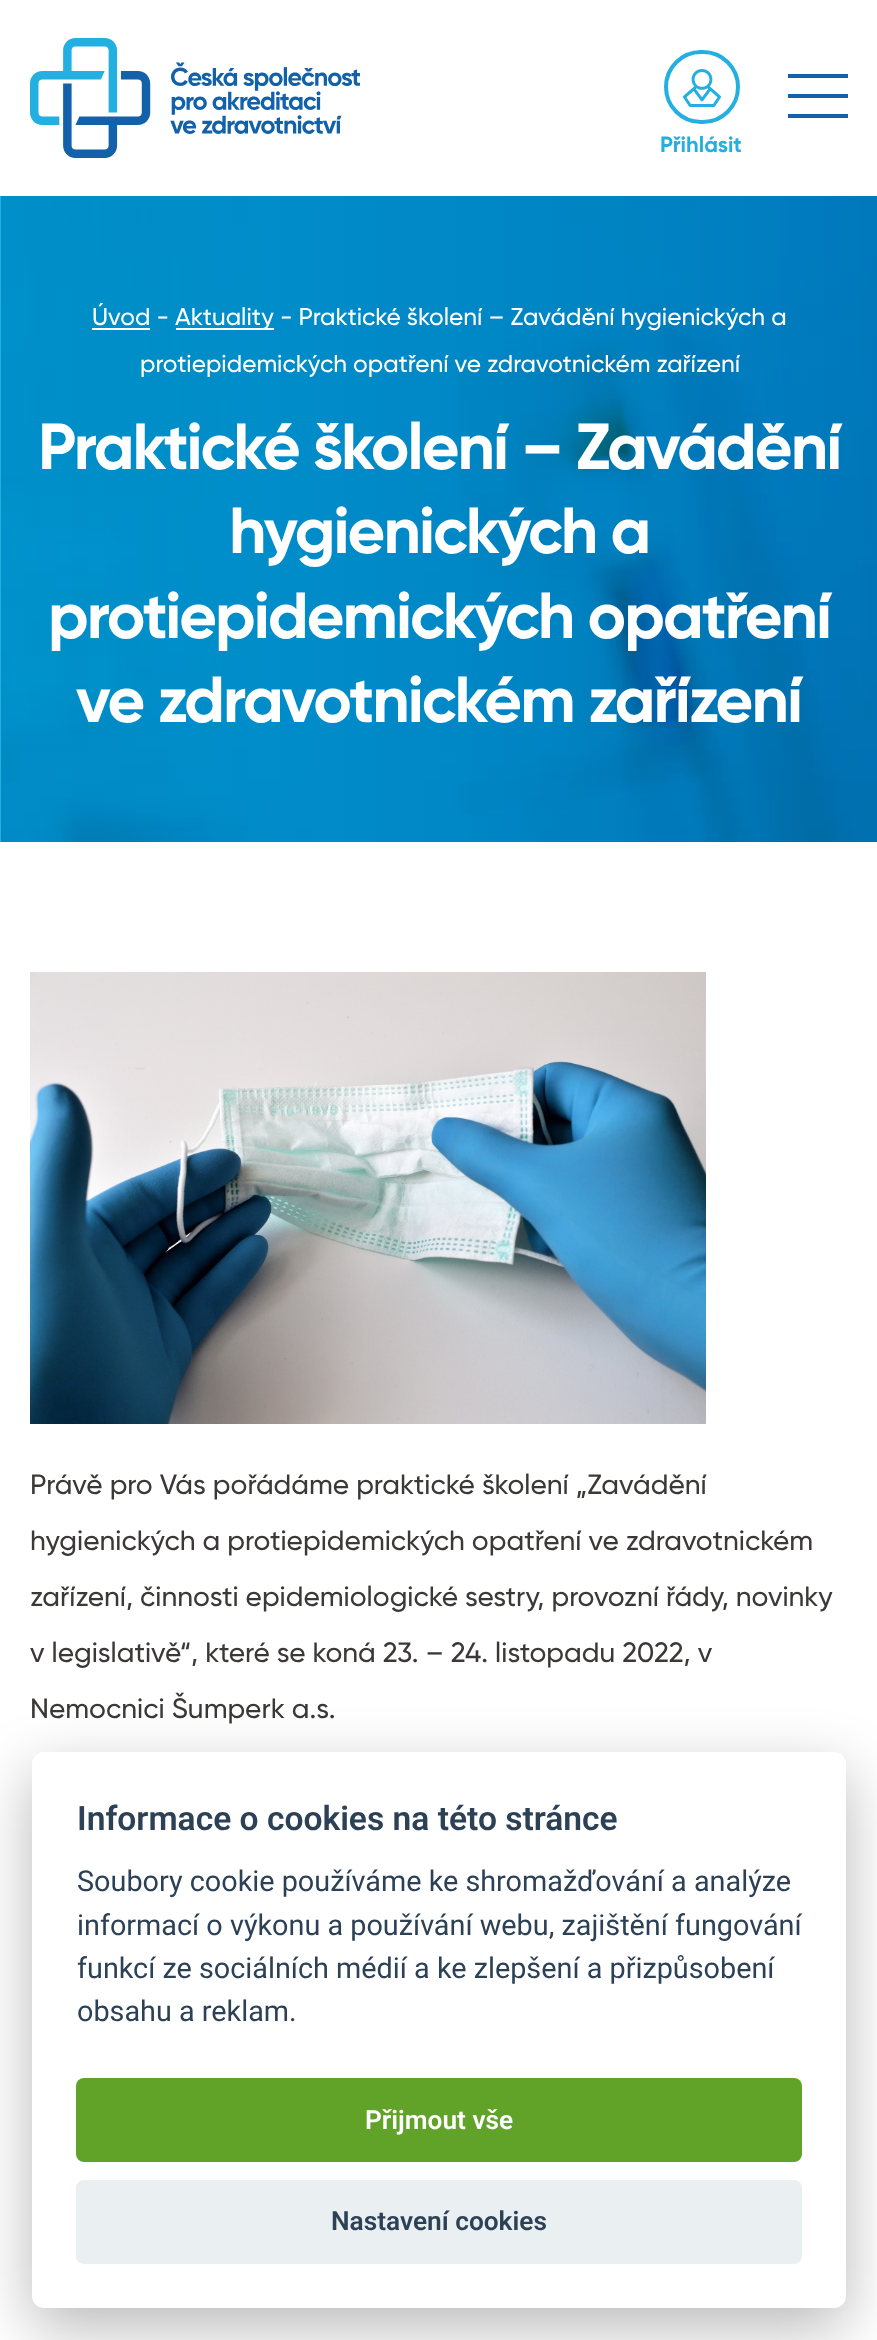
(async () => {
    const canvas = document.querySelector("canvas");
    canvas.width = 877;
    canvas.height = 2340;
    const context = canvas.getContext("2d");
    context.miterLimit = 4;
    context.fontKerning = "normal";
    function write(s, x, y, font, color) {
        context.font = font;
        context.fillStyle = color;
        context.fillText(s, x, y);
    }
    function block(x, y, w, h, color) {
        context.fillStyle = color;
        context.fillRect(x, y, w, h);
    }
    function card(x, y, w, h, r, color) {
        context.fillStyle = color;
        context.beginPath();
        context.roundRect(x, y, w, h, r);
        context.fill();
    }
    async function photo(src, x, y, w, h) {
        const img = new Image();
        img.src = src;
        await img.decode();
        context.drawImage(img, x, y, w, h);
    }
    let gradient;

    block(0, 0, 877, 2340, "rgb(255, 255, 255)");
    await photo("media/1.png", 30, 38, 330, 120);
    block(788, 74, 60, 4, "rgb(18, 97, 169)");
    block(788, 94, 60, 4, "rgb(18, 97, 169)");
    block(788, 114, 60, 4, "rgb(18, 97, 169)");
    context.beginPath();
    context.roundRect(666, 52, 72, 70, 35);
    context.strokeStyle = "rgb(36, 175, 225)";
    context.lineWidth = 4;
    context.stroke();
    await photo("media/2.png", 683, 69, 38, 38);
    write("Přihlásit", 660, 152, "bold 22px Gilroy", "rgb(36, 175, 225)");
    gradient = context.createLinearGradient(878, 519, 0, 519);
    gradient.addColorStop(0, "rgb(18, 97, 169)");
    gradient.addColorStop(1, "rgb(36, 175, 225)");
    context.fillStyle = gradient;
    context.fillRect(0, 196, 1, 646);
    await photo("media/3.png", 1, 196, 876, 646);
    write("Úvod -", 92, 325, "500 24.4px Gilroy", "rgb(255, 255, 255)");
    block(92, 328, 58, 2, "rgb(255, 255, 255)");
    block(176, 328, 98, 2, "rgb(255, 255, 255)");
    write("Aktuality - Praktické školení – Zavádění hygienických a", 175, 325, "500 24.4px Gilroy", "rgb(255, 255, 255)");
    write("protiepidemických opatření ve zdravotnickém zařízení", 140, 372, "500 24.4px Gilroy", "rgb(255, 255, 255)");
    context.letterSpacing = "-1.95px";
    write("Praktické školení – Zavádění", 38, 469, "bold 65px Gilroy", "rgb(255, 255, 255)");
    write("hygienických a", 229, 553, "bold 65px Gilroy", "rgb(255, 255, 255)");
    write("protiepidemických opatření", 48, 638, "bold 65px Gilroy", "rgb(255, 255, 255)");
    write("ve zdravotnickém zařízení", 76, 722, "bold 65px Gilroy", "rgb(255, 255, 255)");
    await photo("media/4.png", 30, 972, 676, 452);
    context.letterSpacing = "0px";
    write("Právě pro Vás pořádáme praktické školení „Zavádění", 30, 1494, "500 28px Gilroy", "rgb(60, 56, 56)");
    write("hygienických a protiepidemických opatření ve zdravotnickém", 30, 1550, "500 28px Gilroy", "rgb(60, 56, 56)");
    write("zařízení, činnosti epidemiologické sestry, provozní řády, novinky", 30, 1606, "500 28px Gilroy", "rgb(60, 56, 56)");
    write("v legislativě“, které se koná 23. – 24. listopadu 2022, v", 30, 1662, "500 28px Gilroy", "rgb(60, 56, 56)");
    write("Nemocnici Šumperk a.s.", 30, 1718, "500 28px Gilroy", "rgb(60, 56, 56)");
    context.fillStyle = "rgba(2, 2, 3, 0.28)";
    context.filter = "blur(30px)";
    context.beginPath();
    context.roundRect(32, 1772, 814, 556, 12);
    context.fill();
    context.filter = "none";
    card(32, 1752, 814, 556, 12, "rgb(255, 255, 255)");
    write("Informace o cookies na této stránce", 77, 1830, "600 33.6px Roboto", "rgb(45, 65, 86)");
    write("Soubory cookie používáme ke shromažďování a analýze", 77, 1891, "28.8px Roboto", "rgb(45, 65, 86)");
    write("informací o výkonu a používání webu, zajištění fungování", 77, 1935, "28.8px Roboto", "rgb(45, 65, 86)");
    write("funkcí ze sociálních médií a ke zlepšení a přizpůsobení", 77, 1978, "28.8px Roboto", "rgb(45, 65, 86)");
    write("obsahu a reklam.", 77, 2021, "28.8px Roboto", "rgb(45, 65, 86)");
    card(76, 2078, 726, 84, 8, "rgb(97, 162, 41)");
    write("Přijmout vše", 365, 2129, "600 26.25px Roboto", "rgb(255, 255, 255)");
    card(76, 2180, 726, 84, 8, "rgb(234, 239, 242)");
    write("Nastavení cookies", 331, 2230, "600 26.25px Roboto", "rgb(45, 65, 86)");
})();
